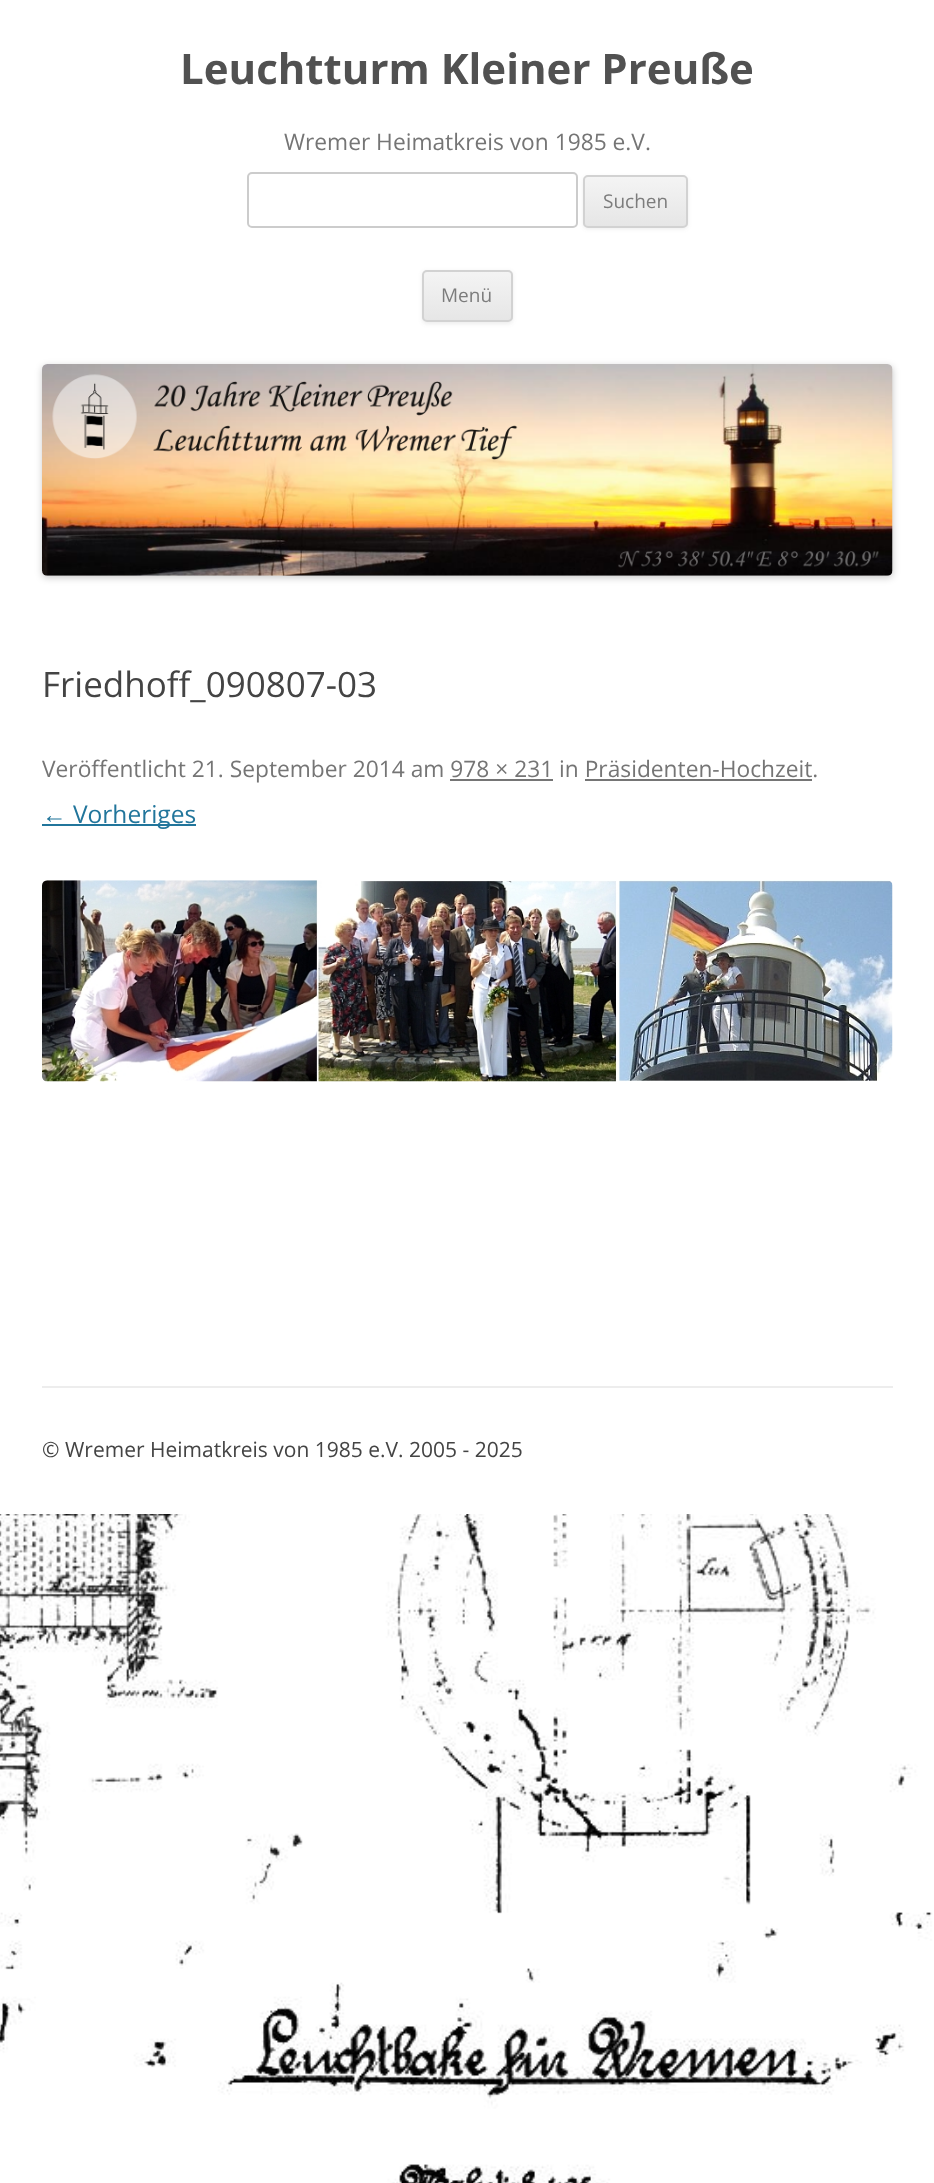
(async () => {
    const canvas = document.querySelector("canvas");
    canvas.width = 934;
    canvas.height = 2183;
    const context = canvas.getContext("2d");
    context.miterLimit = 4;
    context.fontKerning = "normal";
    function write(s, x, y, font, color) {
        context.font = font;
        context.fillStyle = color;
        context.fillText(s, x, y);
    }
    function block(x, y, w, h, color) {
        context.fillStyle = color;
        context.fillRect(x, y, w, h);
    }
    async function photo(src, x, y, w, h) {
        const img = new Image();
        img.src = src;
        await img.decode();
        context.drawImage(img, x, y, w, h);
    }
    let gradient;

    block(0, 0, 934, 2183, "rgb(255, 255, 255)");
    await photo("media/1.png", 0, 1514, 934, 669);
    write("Leuchtturm Kleiner Preuße", 180, 84, "bold 42px Open Sans", "rgb(81, 81, 81)");
    write("Wremer Heimatkreis von 1985 e.V.", 284, 150, "22.75px Open Sans", "rgb(117, 117, 117)");
    context.beginPath();
    context.roundRect(248, 173, 329, 54, 4);
    context.strokeStyle = "rgb(204, 204, 204)";
    context.lineWidth = 2;
    context.stroke();
    context.fillStyle = "rgba(64, 64, 64, 0.1)";
    context.filter = "blur(2px)";
    context.beginPath();
    context.roundRect(583, 177, 105, 52, 5);
    context.fill();
    context.filter = "none";
    context.save();
    context.beginPath();
    context.roundRect(583, 175, 105, 53, 5);
    context.clip();
    gradient = context.createLinearGradient(635, 177, 635, 226);
    gradient.addColorStop(0, "rgb(244, 244, 244)");
    gradient.addColorStop(1, "rgb(230, 230, 230)");
    context.fillStyle = gradient;
    context.fillRect(583, 177, 105, 49);
    context.restore();
    context.beginPath();
    context.roundRect(584, 176, 103, 51, 4);
    context.strokeStyle = "rgb(210, 210, 210)";
    context.stroke();
    write("Suchen", 603, 208, "19px Open Sans", "rgb(124, 124, 124)");
    context.fillStyle = "rgba(64, 64, 64, 0.1)";
    context.filter = "blur(2px)";
    context.beginPath();
    context.roundRect(422, 271, 91, 53, 5);
    context.fill();
    context.filter = "none";
    context.save();
    context.beginPath();
    context.roundRect(422, 270, 91, 52, 5);
    context.clip();
    gradient = context.createLinearGradient(467, 271, 467, 320);
    gradient.addColorStop(0, "rgb(244, 244, 244)");
    gradient.addColorStop(1, "rgb(230, 230, 230)");
    context.fillStyle = gradient;
    context.fillRect(422, 271, 91, 49);
    context.restore();
    context.beginPath();
    context.roundRect(423, 271, 89, 50, 4);
    context.stroke();
    write("Menü", 441, 302, "19px Open Sans", "rgb(124, 124, 124)");
    context.fillStyle = "rgba(0, 0, 0, 0.2)";
    context.filter = "blur(3.5px)";
    context.beginPath();
    context.roundRect(42, 366, 851, 212, 5);
    context.fill();
    context.filter = "none";
    await photo("media/2.png", 42, 364, 851, 212);
    write("Friedhoff_090807-03", 42, 697, "35px Open Sans", "rgb(68, 68, 68)");
    write("Veröffentlicht 21. September 2014 am 978 × 231 in Präsidenten-Hochzeit.", 42, 777, "22.75px Open Sans", "rgb(117, 117, 117)");
    block(450, 779, 103, 2, "rgb(117, 117, 117)");
    block(585, 779, 227, 2, "rgb(117, 117, 117)");
    write("←", 42, 823, "24.5px Liberation Sans", "rgb(33, 117, 155)");
    block(42, 824, 154, 2, "rgb(33, 117, 155)");
    write("Vorheriges", 73, 823, "24.5px Open Sans", "rgb(33, 117, 155)");
    await photo("media/3.png", 42, 880, 851, 202);
    block(42, 1386, 851, 2, "rgb(237, 237, 237)");
    write("© Wremer Heimatkreis von 1985 e.V. 2005 - 2025", 42, 1457, "21px Open Sans", "rgb(68, 68, 68)");
})();
